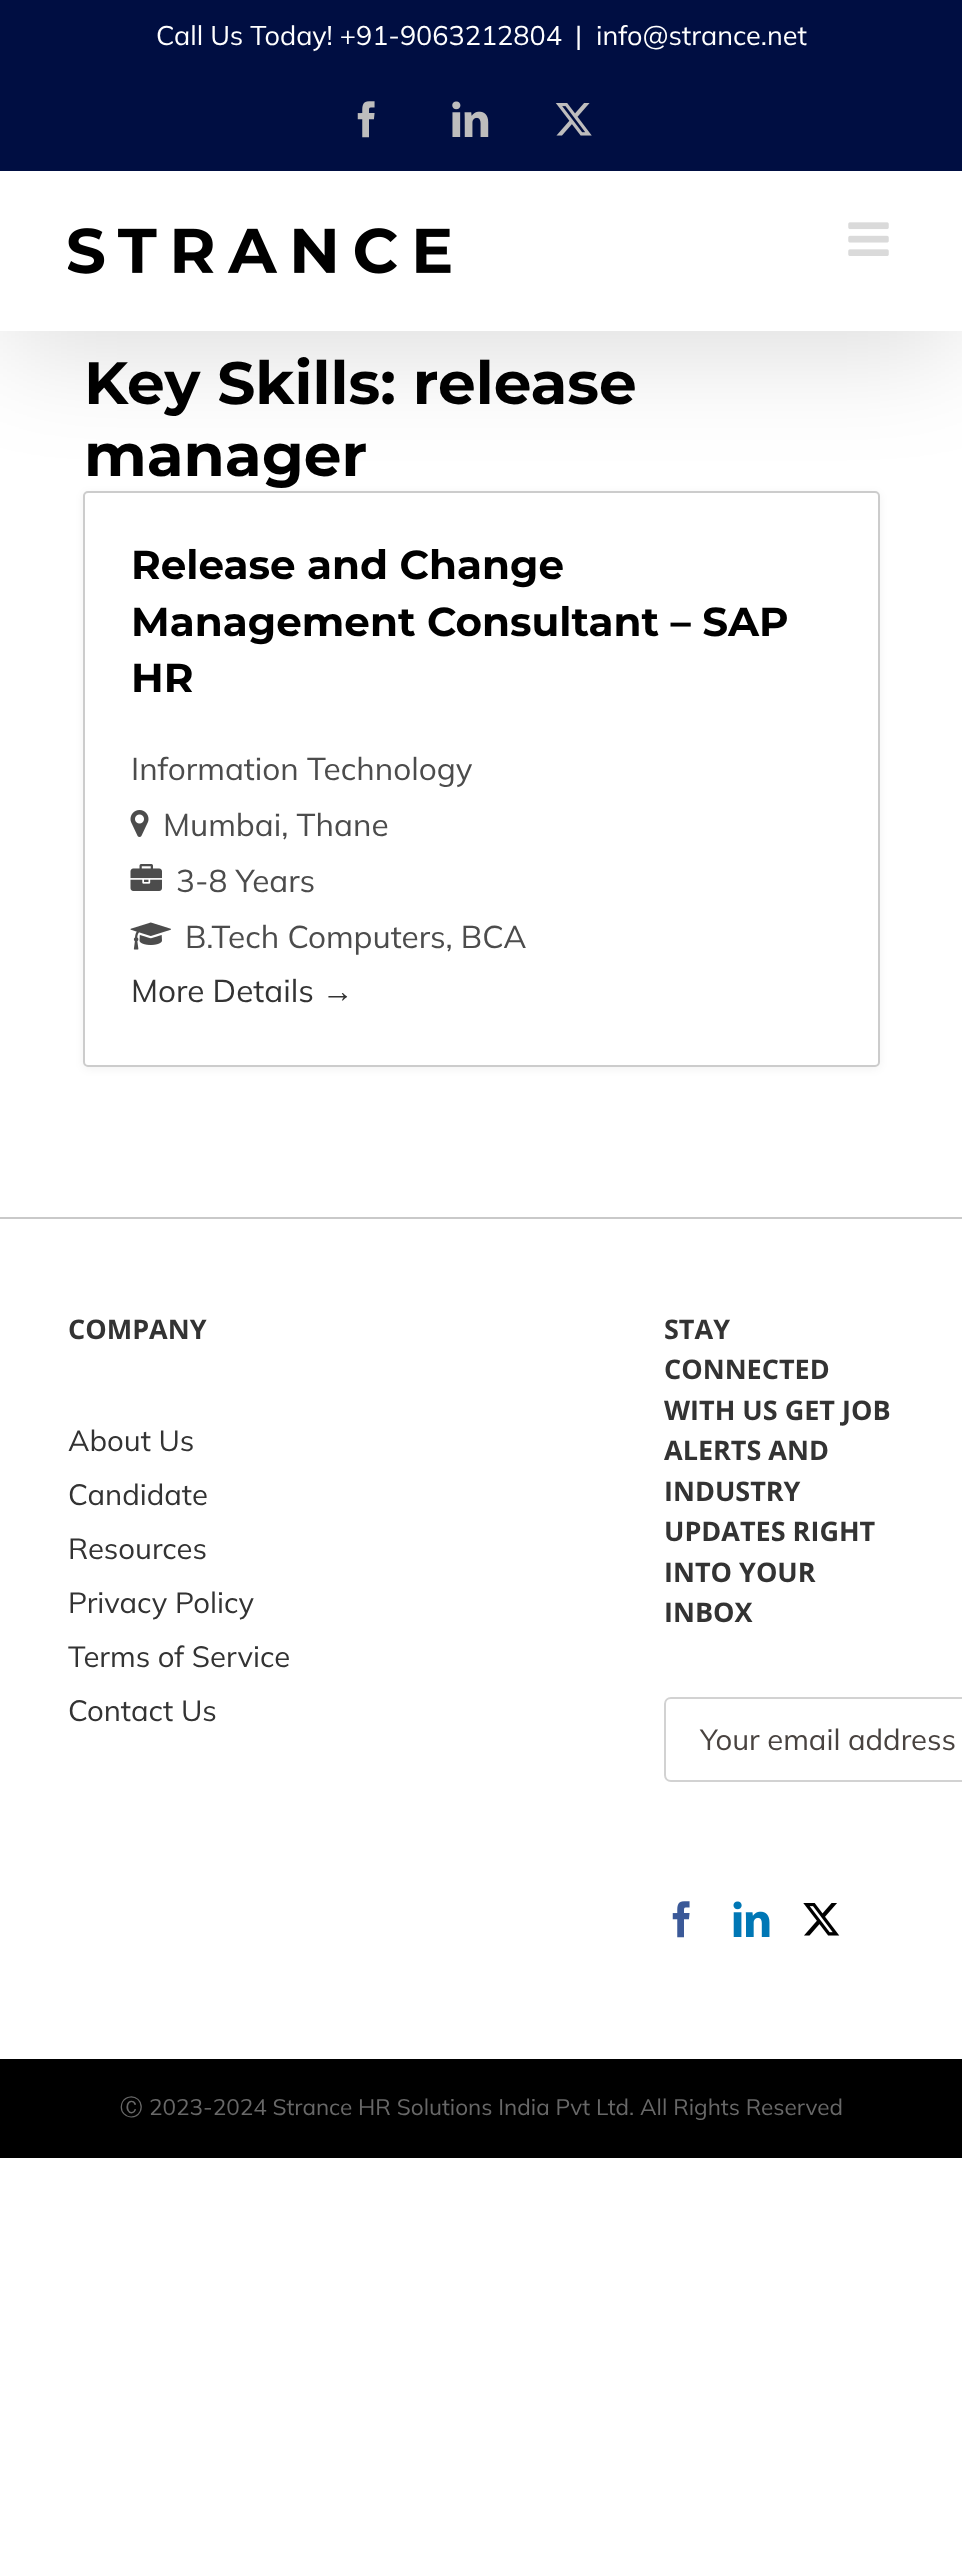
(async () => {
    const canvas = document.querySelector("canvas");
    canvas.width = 962;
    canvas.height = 2561;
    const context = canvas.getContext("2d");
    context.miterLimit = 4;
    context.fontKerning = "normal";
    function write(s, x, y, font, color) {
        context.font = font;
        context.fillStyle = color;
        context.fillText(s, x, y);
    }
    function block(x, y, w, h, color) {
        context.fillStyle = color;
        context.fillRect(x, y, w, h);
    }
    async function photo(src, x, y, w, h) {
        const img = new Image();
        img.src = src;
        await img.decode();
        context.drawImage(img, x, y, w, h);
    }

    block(0, 0, 962, 2561, "rgb(255, 255, 255)");
    context.fillStyle = "rgba(0, 0, 0, 0.05)";
    context.filter = "blur(4.5px)";
    context.beginPath();
    context.roundRect(83, 493, 797, 576, 5);
    context.fill();
    context.filter = "none";
    context.fillStyle = "rgb(255, 255, 255)";
    context.beginPath();
    context.roundRect(84, 492, 795, 574, 4);
    context.fill();
    context.strokeStyle = "rgb(204, 204, 204)";
    context.lineWidth = 2;
    context.stroke();
    context.fillStyle = "rgba(0, 0, 0, 0.14)";
    context.filter = "blur(56px)";
    context.beginPath();
    context.rect(5, 27, 954, 322);
    context.fill();
    context.filter = "none";
    block(0, 0, 962, 171, "rgb(0, 14, 66)");
    write("Call Us Today! +91-9063212804", 156, 45, "27px Mulish", "rgb(255, 255, 255)");
    write("|", 575, 45, "27px Mulish", "rgb(255, 255, 255)");
    write("info@strance.net", 596, 45, "27px Mulish", "rgb(255, 255, 255)");
    await photo("media/1.png", 357, 101, 18, 37);
    await photo("media/2.png", 452, 101, 37, 36);
    await photo("media/3.png", 555, 103, 37, 33);
    block(0, 171, 962, 160, "rgb(255, 255, 255)");
    await photo("media/4.png", 68, 228, 383, 46);
    await photo("media/5.png", 848, 222, 41, 34);
    write("Key Skills: release", 84, 404, "100 59.75px Montserrat", "rgb(0, 0, 0)");
    write("manager", 84, 476, "100 59.75px Montserrat", "rgb(0, 0, 0)");
    write("Release and Change", 131, 579, "100 40.5px Montserrat", "rgb(0, 0, 0)");
    write("Management Consultant – SAP", 131, 636, "100 40.5px Montserrat", "rgb(0, 0, 0)");
    write("HR", 131, 692, "100 40.5px Montserrat", "rgb(0, 0, 0)");
    write("Information Technology", 131, 780, "31.5px Mulish", "rgb(76, 76, 76)");
    await photo("media/6.png", 130, 810, 19, 27);
    write("Mumbai, Thane", 163, 836, "31.5px Mulish", "rgb(76, 76, 76)");
    await photo("media/7.png", 130, 864, 32, 27);
    write("3-8 Years", 176, 892, "31.5px Mulish", "rgb(76, 76, 76)");
    await photo("media/8.png", 130, 922, 41, 28);
    write("B.Tech Computers, BCA", 185, 948, "31.5px Mulish", "rgb(76, 76, 76)");
    write("More Details", 131, 1002, "31.5px Mulish", "rgb(51, 51, 51)");
    write("→", 322, 1002, "31.5px Liberation Sans", "rgb(51, 51, 51)");
    block(0, 1217, 962, 2, "rgb(201, 201, 201)");
    write("COMPANY", 68, 1339, "bold 27px Open Sans", "rgb(51, 51, 51)");
    write("About Us", 68, 1451, "29.25px Mulish", "rgb(51, 51, 51)");
    write("Candidate", 68, 1505, "29.25px Mulish", "rgb(51, 51, 51)");
    write("Resources", 68, 1559, "29.25px Mulish", "rgb(51, 51, 51)");
    write("Privacy Policy", 68, 1613, "29.25px Mulish", "rgb(51, 51, 51)");
    write("Terms of Service", 68, 1667, "29.25px Mulish", "rgb(51, 51, 51)");
    write("Contact Us", 68, 1721, "29.25px Mulish", "rgb(51, 51, 51)");
    write("STAY", 664, 1339, "bold 27px Open Sans", "rgb(51, 51, 51)");
    write("CONNECTED", 664, 1379, "bold 27px Open Sans", "rgb(51, 51, 51)");
    write("WITH US GET JOB", 664, 1420, "bold 27px Open Sans", "rgb(51, 51, 51)");
    write("ALERTS AND", 664, 1460, "bold 27px Open Sans", "rgb(51, 51, 51)");
    write("INDUSTRY", 664, 1501, "bold 27px Open Sans", "rgb(51, 51, 51)");
    write("UPDATES RIGHT", 664, 1541, "bold 27px Open Sans", "rgb(51, 51, 51)");
    write("INTO YOUR", 664, 1582, "bold 27px Open Sans", "rgb(51, 51, 51)");
    write("INBOX", 664, 1622, "bold 27px Open Sans", "rgb(51, 51, 51)");
    context.beginPath();
    context.moveTo(671, 1698);
    context.lineTo(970, 1698);
    context.lineTo(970, 1781);
    context.lineTo(671, 1781);
    context.bezierCurveTo(667.5, 1781, 665, 1778.5, 665, 1775);
    context.lineTo(665, 1704);
    context.bezierCurveTo(665, 1700.5, 667.5, 1698, 671, 1698);
    context.closePath();
    context.strokeStyle = "rgb(210, 210, 210)";
    context.stroke();
    write("Your email address", 700, 1750, "29.25px Mulish", "rgb(73, 67, 64)");
    await photo("media/9.png", 672, 1901, 18, 37);
    await photo("media/10.png", 733, 1901, 37, 36);
    await photo("media/11.png", 803, 1903, 37, 33);
    block(0, 2059, 962, 99, "rgb(0, 0, 0)");
    write("Ⓒ", 120, 2115, "500 22.5px WenQuanYi Zen Hei", "rgb(104, 104, 104)");
    write("2023-2024 Strance HR Solutions India Pvt Ltd. All Rights Reserved", 149, 2115, "22.5px Mulish", "rgb(104, 104, 104)");
})();
